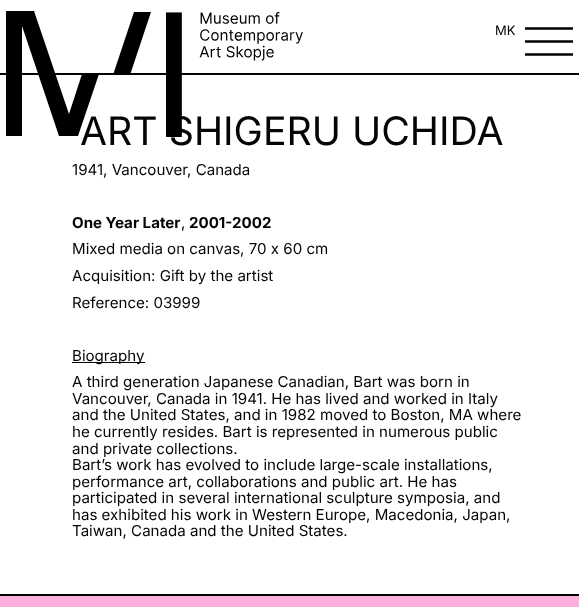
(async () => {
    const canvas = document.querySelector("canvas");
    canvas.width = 579;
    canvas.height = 607;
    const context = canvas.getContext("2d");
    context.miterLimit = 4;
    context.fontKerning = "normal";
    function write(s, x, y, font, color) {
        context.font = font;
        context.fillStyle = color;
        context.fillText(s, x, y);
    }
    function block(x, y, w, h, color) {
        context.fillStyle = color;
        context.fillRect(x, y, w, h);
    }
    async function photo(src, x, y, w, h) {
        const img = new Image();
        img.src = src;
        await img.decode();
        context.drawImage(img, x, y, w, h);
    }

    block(0, 0, 579, 607, "rgb(255, 255, 255)");
    block(0, 73, 579, 2, "rgb(5, 5, 5)");
    write("ART SHIGERU UCHIDA", 80, 145, "39.25px Inter", "rgb(5, 5, 5)");
    context.fillStyle = "rgb(0, 0, 0)";
    context.beginPath();
    context.moveTo(82, 74);
    context.lineTo(99, 74);
    context.lineTo(78, 136);
    context.lineTo(59, 136);
    context.lineTo(22, 26);
    context.lineTo(22, 136);
    context.lineTo(6, 136);
    context.lineTo(6, 11);
    context.lineTo(34, 11);
    context.lineTo(69, 114);
    context.closePath();
    context.fill();
    context.beginPath();
    context.moveTo(134, 12);
    context.lineTo(151, 12);
    context.lineTo(130, 75);
    context.lineTo(113, 75);
    context.closePath();
    context.fill();
    await photo("media/1.png", 166, 12, 137, 125);
    write("MK", 495, 35, "13px Inter", "rgb(5, 5, 5)");
    context.beginPath();
    context.moveTo(525, 28.5);
    context.lineTo(573, 28.5);
    context.moveTo(525, 41.5);
    context.lineTo(573, 41.5);
    context.moveTo(525, 54.5);
    context.lineTo(573, 54.5);
    context.strokeStyle = "rgb(0, 0, 0)";
    context.lineWidth = 2.3;
    context.stroke();
    write("1941, Vancouver, Canada", 72, 175, "15.1px Inter", "rgb(5, 5, 5)");
    write("One Year Later", 72, 228, "bold 15.1px Inter", "rgb(5, 5, 5)");
    write(",", 181, 228, "15.1px Inter", "rgb(5, 5, 5)");
    write("2001-2002", 189, 228, "bold 15.1px Inter", "rgb(5, 5, 5)");
    write("Mixed media on canvas, 70 х 60 cm", 72, 254, "15.1px Inter", "rgb(5, 5, 5)");
    write("Acquisition: Gift by the artist", 72, 281, "15.1px Inter", "rgb(5, 5, 5)");
    write("Reference: 03999", 72, 308, "15.1px Inter", "rgb(5, 5, 5)");
    block(72, 362, 73, 1, "rgb(5, 5, 5)");
    write("Biography", 72, 361, "15.1px Inter", "rgb(5, 5, 5)");
    write("A third generation Japanese Canadian, Bart was born in", 72, 387, "15.1px Inter", "rgb(5, 5, 5)");
    write("Vancouver, Canada in 1941. He has lived and worked in Italy", 72, 404, "15.1px Inter", "rgb(5, 5, 5)");
    write("and the United States, and in 1982 moved to Boston, MA where", 72, 420, "15.1px Inter", "rgb(5, 5, 5)");
    write("he currently resides. Bart is represented in numerous public", 72, 437, "15.1px Inter", "rgb(5, 5, 5)");
    write("and private collections.", 72, 454, "15.1px Inter", "rgb(5, 5, 5)");
    write("Bart’s work has evolved to include large-scale installations,", 72, 470, "15.1px Inter", "rgb(5, 5, 5)");
    write("performance art, collaborations and public art. He has", 72, 487, "15.1px Inter", "rgb(5, 5, 5)");
    write("participated in several international sculpture symposia, and", 72, 503, "15.1px Inter", "rgb(5, 5, 5)");
    write("has exhibited his work in Western Europe, Macedonia, Japan,", 72, 520, "15.1px Inter", "rgb(5, 5, 5)");
    write("Taiwan, Canada and the United States.", 72, 536, "15.1px Inter", "rgb(5, 5, 5)");
    block(0, 596, 579, 11, "rgb(255, 175, 221)");
    block(0, 594, 579, 2, "rgb(0, 0, 0)");
})();
